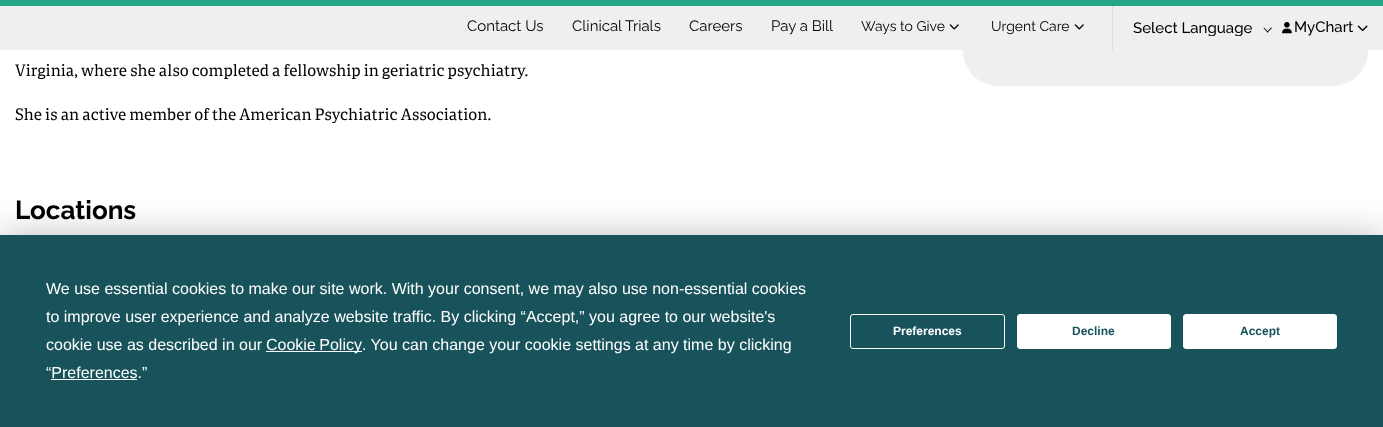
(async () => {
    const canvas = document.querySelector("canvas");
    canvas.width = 1383;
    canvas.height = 427;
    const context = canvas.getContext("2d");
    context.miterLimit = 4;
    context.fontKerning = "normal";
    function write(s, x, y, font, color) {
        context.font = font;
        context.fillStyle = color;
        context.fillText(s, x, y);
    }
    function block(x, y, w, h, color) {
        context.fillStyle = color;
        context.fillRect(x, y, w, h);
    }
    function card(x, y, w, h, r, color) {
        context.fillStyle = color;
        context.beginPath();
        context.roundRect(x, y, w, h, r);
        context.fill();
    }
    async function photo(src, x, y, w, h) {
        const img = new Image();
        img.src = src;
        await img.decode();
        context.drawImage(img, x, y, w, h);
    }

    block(0, 0, 1383, 427, "rgb(255, 255, 255)");
    card(963, -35, 405, 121, 35, "rgb(240, 239, 239)");
    block(0, 6, 1383, 44, "rgb(240, 239, 239)");
    block(0, 0, 1383, 6, "rgb(37, 166, 133)");
    block(1112, 6, 1, 44, "rgb(219, 219, 219)");
    write("Contact Us", 467, 31, "15px Raleway", "rgb(0, 0, 0)");
    write("Clinical Trials", 572, 31, "15px Raleway", "rgb(0, 0, 0)");
    write("Careers", 689, 31, "15px Raleway", "rgb(0, 0, 0)");
    write("Pay a Bill", 771, 31, "15px Raleway", "rgb(0, 0, 0)");
    write("Ways to Give", 861, 31, "14px Raleway", "rgb(0, 0, 0)");
    await photo("media/1.png", 949, 24, 10, 6);
    write("Urgent Care", 991, 31, "14px Raleway", "rgb(0, 0, 0)");
    await photo("media/1.png", 1074, 24, 10, 6);
    context.save();
    context.beginPath();
    context.rect(1133, 20, 125, 16);
    context.clip();
    write("Select Language", 1133, 33, "500 15px Raleway", "rgb(0, 0, 0)");
    context.restore();
    context.beginPath();
    context.moveTo(1271, 27.5);
    context.lineTo(1272, 28);
    context.lineTo(1267.5, 32.5);
    context.lineTo(1267, 32);
    context.closePath();
    context.fill();
    context.beginPath();
    context.moveTo(1264, 27.5);
    context.lineTo(1268.5, 32);
    context.lineTo(1267.5, 32.5);
    context.lineTo(1263.5, 28);
    context.closePath();
    context.fill();
    await photo("media/2.png", 1282, 22, 10, 12);
    write("MyChart", 1294, 32, "500 15px Raleway", "rgb(0, 0, 0)");
    await photo("media/3.png", 1357, 25, 11, 7);
    write("Virginia, where she also completed a fellowship in geriatric psychiatry.", 15, 76, "16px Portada", "rgb(0, 0, 0)");
    write("She is an active member of the American Psychiatric Association.", 15, 120, "16px Portada", "rgb(0, 0, 0)");
    write("Locations", 15, 219, "bold 26px Raleway", "rgb(0, 0, 0)");
    context.fillStyle = "rgba(0, 0, 0, 0.25)";
    context.filter = "blur(17.5px)";
    context.beginPath();
    context.rect(0, 235, 1383, 192);
    context.fill();
    context.filter = "none";
    block(0, 235, 1383, 192, "rgb(24, 83, 92)");
    write("We use essential cookies to make our site work. With your consent, we may also use non-essential cookies", 46, 294, "16px Liberation Sans", "rgb(255, 255, 255)");
    write("to improve user experience and analyze website traffic. By clicking “Accept,” you agree to our website's", 46, 322, "16px Liberation Sans", "rgb(255, 255, 255)");
    write("cookie use as described in our", 46, 350, "16px Liberation Sans", "rgb(255, 255, 255)");
    block(266, 351, 96, 1, "rgb(255, 255, 255)");
    context.wordSpacing = "-1px";
    write("Cookie Policy", 266, 350, "16px Liberation Sans", "rgb(255, 255, 255)");
    context.wordSpacing = "0px";
    write(". You can change your cookie settings at any time by clicking", 362, 350, "16px Liberation Sans", "rgb(255, 255, 255)");
    write("“Preferences.”", 46, 378, "16px Liberation Sans", "rgb(255, 255, 255)");
    block(51, 379, 86, 1, "rgb(255, 255, 255)");
    context.beginPath();
    context.roundRect(850.5, 314.5, 154, 34, 2.5);
    context.strokeStyle = "rgb(255, 255, 255)";
    context.stroke();
    write("Preferences", 893, 335, "bold 12px Liberation Sans", "rgb(255, 255, 255)");
    context.beginPath();
    context.roundRect(1017.5, 314.5, 153, 34, 2.5);
    context.fill();
    context.stroke();
    write("Decline", 1072, 335, "bold 12px Liberation Sans", "rgb(24, 83, 92)");
    context.fillStyle = "rgb(255, 255, 255)";
    context.beginPath();
    context.roundRect(1183.5, 314.5, 153, 34, 2.5);
    context.fill();
    context.stroke();
    write("Accept", 1240, 335, "bold 12px Liberation Sans", "rgb(24, 83, 92)");
})();
